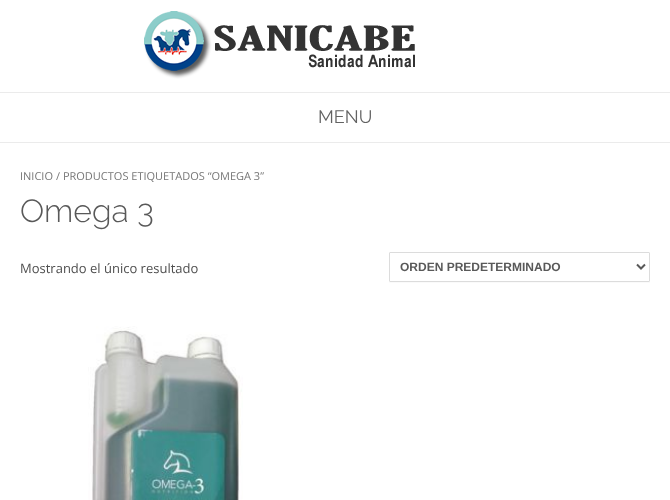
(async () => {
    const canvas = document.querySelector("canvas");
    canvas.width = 670;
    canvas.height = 500;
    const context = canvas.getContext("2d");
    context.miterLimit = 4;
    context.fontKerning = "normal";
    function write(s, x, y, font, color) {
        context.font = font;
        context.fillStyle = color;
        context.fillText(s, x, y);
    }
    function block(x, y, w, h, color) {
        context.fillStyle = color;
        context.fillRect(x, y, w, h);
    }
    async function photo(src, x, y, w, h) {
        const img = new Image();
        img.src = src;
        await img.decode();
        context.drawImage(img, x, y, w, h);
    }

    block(0, 0, 670, 500, "rgb(255, 255, 255)");
    block(0, 142, 670, 1, "rgb(235, 235, 235)");
    await photo("media/1.png", 144, 11, 271, 68);
    block(0, 92, 670, 1, "rgb(235, 235, 235)");
    write("MENU", 318, 123, "18px Raleway", "rgb(98, 98, 98)");
    write("INICIO", 20, 180, "11px Open Sans", "rgb(118, 118, 118)");
    write("/ PRODUCTOS ETIQUETADOS “OMEGA 3”", 56, 180, "11px Open Sans", "rgb(118, 118, 118)");
    write("Omega 3", 20, 222, "300 32px Raleway", "rgb(89, 89, 89)");
    write("Mostrando el único resultado", 20, 273, "13px Open Sans", "rgb(79, 79, 79)");
    context.fillStyle = "rgb(250, 250, 250)";
    context.beginPath();
    context.moveTo(389, 281);
    context.bezierCurveTo(389, 282, 389, 283, 390, 283);
    context.lineTo(650, 283);
    context.lineTo(650, 281);
    context.lineTo(649, 282);
    context.lineTo(390, 282);
    context.closePath();
    context.fill();
    context.beginPath();
    context.roundRect(389.5, 252.5, 260, 29, 0.5);
    context.strokeStyle = "rgb(220, 220, 220)";
    context.stroke();
    context.beginPath();
    context.moveTo(637, 264.5);
    context.lineTo(641, 268.5);
    context.lineTo(645, 264.5);
    context.strokeStyle = "rgb(89, 89, 89)";
    context.lineWidth = 2;
    context.stroke();
    write("ORDEN PREDETERMINADO", 400, 271, "bold 12px Liberation Sans", "rgb(89, 89, 89)");
    await photo("media/2.png", 88, 326, 155, 174);
})();
